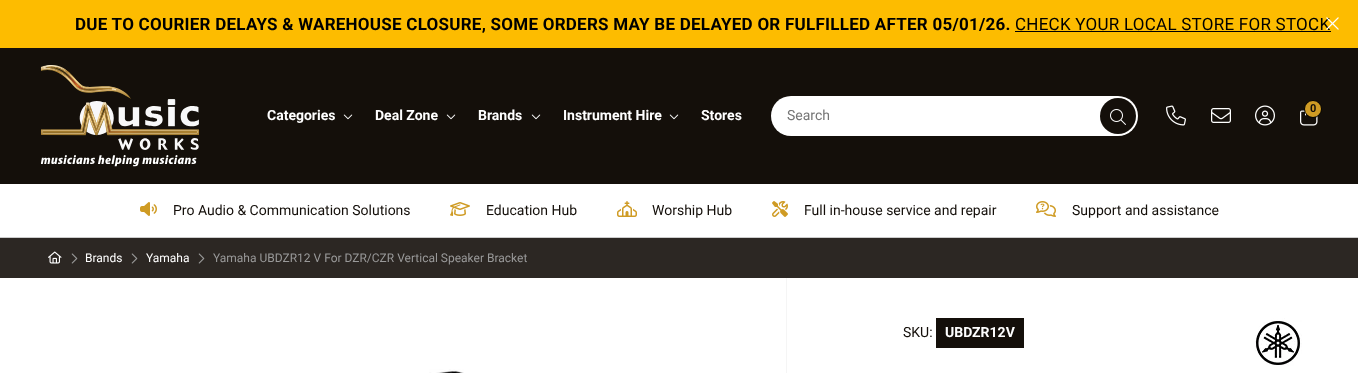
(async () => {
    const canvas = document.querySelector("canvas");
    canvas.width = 1358;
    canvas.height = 373;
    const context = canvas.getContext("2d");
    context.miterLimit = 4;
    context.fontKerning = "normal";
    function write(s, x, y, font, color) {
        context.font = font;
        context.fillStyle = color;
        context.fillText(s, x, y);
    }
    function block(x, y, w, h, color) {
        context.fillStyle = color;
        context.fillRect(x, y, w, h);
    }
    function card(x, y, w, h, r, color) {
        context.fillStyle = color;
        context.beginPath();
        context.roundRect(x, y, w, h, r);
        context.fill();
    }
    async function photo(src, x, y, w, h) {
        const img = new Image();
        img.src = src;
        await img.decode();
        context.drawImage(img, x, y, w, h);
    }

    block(0, 0, 1358, 373, "rgb(255, 255, 255)");
    block(0, 0, 1358, 48, "rgb(253, 188, 0)");
    context.letterSpacing = "0.25px";
    write("DUE TO COURIER DELAYS & WAREHOUSE CLOSURE, SOME ORDERS MAY BE DELAYED OR FULFILLED AFTER 05/01/26.", 75, 30, "bold 17px Roboto", "rgb(0, 0, 0)");
    write("CHECK YOUR LOCAL STORE FOR STOCK", 1015, 30, "17px Roboto", "rgb(0, 0, 0)");
    block(1015, 31, 316, 1, "rgb(0, 0, 0)");
    await photo("media/1.png", 1326, 17, 13, 13);
    block(0, 48, 1358, 136, "rgb(20, 15, 10)");
    await photo("media/2.png", 40, 65, 160, 102);
    context.letterSpacing = "0px";
    write("Categories", 267, 120, "bold 14px Roboto", "rgb(255, 255, 255)");
    await photo("media/3.png", 343, 114, 10, 6);
    write("Deal Zone", 375, 120, "bold 14px Roboto", "rgb(255, 255, 255)");
    await photo("media/3.png", 446, 114, 10, 6);
    write("Brands", 478, 120, "bold 14px Roboto", "rgb(255, 255, 255)");
    await photo("media/3.png", 531, 114, 10, 6);
    write("Instrument Hire", 563, 120, "bold 14px Roboto", "rgb(255, 255, 255)");
    await photo("media/3.png", 669, 114, 10, 6);
    write("Stores", 701, 120, "bold 14px Roboto", "rgb(255, 255, 255)");
    card(771, 96, 367, 40, 20, "rgb(255, 255, 255)");
    write("Search", 787, 120, "14px Roboto", "rgb(117, 117, 117)");
    context.fillStyle = "rgb(20, 15, 10)";
    context.beginPath();
    context.arc(1118, 116, 18, 0, Math.PI * 2);
    context.fill();
    await photo("media/4.png", 1110, 109, 16, 16);
    await photo("media/5.png", 1166, 105, 20, 21);
    await photo("media/6.png", 1211, 108, 20, 15);
    await photo("media/7.png", 1255, 105, 20, 21);
    await photo("media/8.png", 1300, 110, 18, 16);
    context.fillStyle = "rgb(207, 155, 36)";
    context.beginPath();
    context.arc(1313, 109, 8.5, 0, Math.PI * 2);
    context.fill();
    context.strokeStyle = "rgb(0, 0, 0)";
    context.stroke();
    write("0", 1310, 112, "bold 11px Roboto", "rgb(20, 15, 10)");
    block(0, 237, 1358, 1, "rgb(204, 204, 204)");
    await photo("media/9.png", 140, 202, 17, 14);
    write("Pro Audio & Communication Solutions", 173, 215, "14px Roboto", "rgb(20, 15, 10)");
    await photo("media/10.png", 450, 202, 20, 14);
    write("Education Hub", 486, 215, "14px Roboto", "rgb(20, 15, 10)");
    await photo("media/11.png", 617, 201, 20, 16);
    write("Worship Hub", 652, 215, "14px Roboto", "rgb(20, 15, 10)");
    await photo("media/12.png", 772, 201, 16, 16);
    write("Full in-house service and repair", 804, 215, "14px Roboto", "rgb(20, 15, 10)");
    await photo("media/13.png", 1036, 201, 20, 16);
    write("Support and assistance", 1072, 215, "14px Roboto", "rgb(20, 15, 10)");
    block(0, 238, 1358, 40, "rgb(44, 39, 35)");
    await photo("media/14.png", 48, 251, 14, 13);
    await photo("media/15.png", 71, 253, 7, 11);
    write("Brands", 85, 262, "12px Roboto", "rgb(255, 255, 255)");
    await photo("media/15.png", 131, 253, 7, 11);
    write("Yamaha", 146, 262, "12px Roboto", "rgb(255, 255, 255)");
    await photo("media/15.png", 198, 253, 7, 11);
    write("Yamaha UBDZR12 V For DZR/CZR Vertical Speaker Bracket", 213, 262, "12px Roboto", "rgb(153, 153, 153)");
    block(786, 278, 1, 95, "rgb(245, 245, 245)");
    await photo("media/16.png", 429, 369, 35, 4);
    write("SKU:", 903, 337, "14px Roboto", "rgb(20, 15, 10)");
    block(936, 318, 88, 30, "rgb(20, 15, 10)");
    write("UBDZR12V", 945, 337, "bold 14px Roboto", "rgb(255, 255, 255)");
    await photo("media/17.png", 1255, 318, 47, 48);
})();
